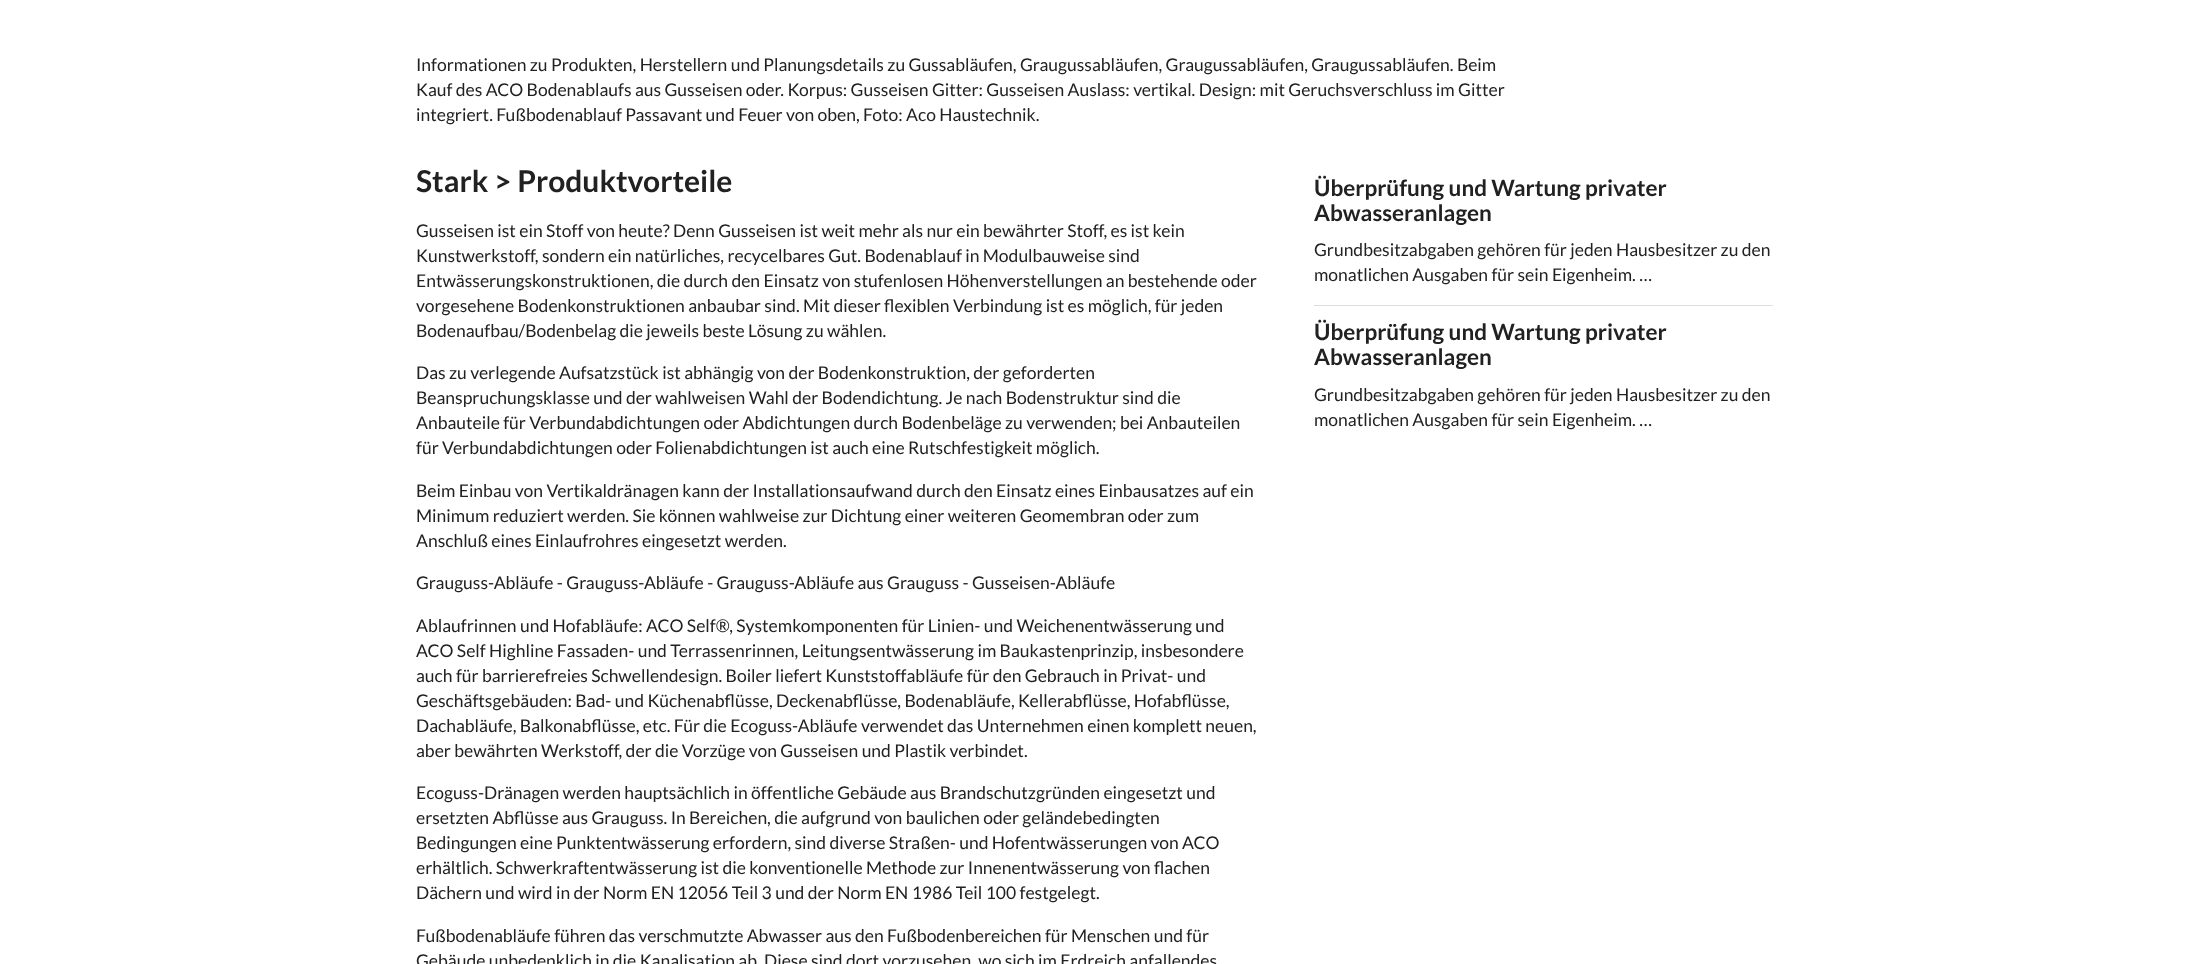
<svg xmlns="http://www.w3.org/2000/svg" xmlns:xlink="http://www.w3.org/1999/xlink" width="2206" height="964" viewBox="0 0 2206 964">
<style>
.cls-1{font:17.5px Lato;fill:#212121}
.cls-2{font:bold 30px Lato;fill:#212121}
.cls-3{font:bold 22.5px Lato;fill:#212121}
</style>
<rect width="100%" height="100%" fill="#ffffff"/>
<rect fill="#dedede" x="1314" y="305" width="459" height="1"/>
<text class="cls-1"><tspan x="416" y="71">Informationen zu Produkten, Herstellern und Planungsdetails zu Gussabläufen, Graugussabläufen, Graugussabläufen, Graugussabläufen. Beim</tspan><tspan x="416" y="96">Kauf des ACO Bodenablaufs aus Gusseisen oder. Korpus: Gusseisen Gitter: Gusseisen Auslass: vertikal. Design: mit Geruchsverschluss im Gitter</tspan><tspan x="416" y="121">integriert. Fußbodenablauf Passavant und Feuer von oben, Foto: Aco Haustechnik.</tspan></text>
<text class="cls-2" x="416" y="192">Stark &gt; Produktvorteile</text>
<text class="cls-1"><tspan x="416" y="237">Gusseisen ist ein Stoff von heute? Denn Gusseisen ist weit mehr als nur ein bewährter Stoff, es ist kein</tspan><tspan x="416" y="262">Kunstwerkstoff, sondern ein natürliches, recycelbares Gut. Bodenablauf in Modulbauweise sind</tspan><tspan x="416" y="287">Entwässerungskonstruktionen, die durch den Einsatz von stufenlosen Höhenverstellungen an bestehende oder</tspan><tspan x="416" y="312">vorgesehene Bodenkonstruktionen anbaubar sind. Mit dieser flexiblen Verbindung ist es möglich, für jeden</tspan><tspan x="416" y="337">Bodenaufbau/Bodenbelag die jeweils beste Lösung zu wählen.</tspan></text>
<text class="cls-1"><tspan x="416" y="379">Das zu verlegende Aufsatzstück ist abhängig von der Bodenkonstruktion, der geforderten</tspan><tspan x="416" y="404">Beanspruchungsklasse und der wahlweisen Wahl der Bodendichtung. Je nach Bodenstruktur sind die</tspan><tspan x="416" y="429">Anbauteile für Verbundabdichtungen oder Abdichtungen durch Bodenbeläge zu verwenden; bei Anbauteilen</tspan><tspan x="416" y="454">für Verbundabdichtungen oder Folienabdichtungen ist auch eine Rutschfestigkeit möglich.</tspan></text>
<text class="cls-1"><tspan x="416" y="497">Beim Einbau von Vertikaldränagen kann der Installationsaufwand durch den Einsatz eines Einbausatzes auf ein</tspan><tspan x="416" y="522">Minimum reduziert werden. Sie können wahlweise zur Dichtung einer weiteren Geomembran oder zum</tspan><tspan x="416" y="547">Anschluß eines Einlaufrohres eingesetzt werden.</tspan></text>
<text class="cls-1" x="416" y="589">Grauguss-Abläufe - Grauguss-Abläufe - Grauguss-Abläufe aus Grauguss - Gusseisen-Abläufe</text>
<text class="cls-1"><tspan x="416" y="632">Ablaufrinnen und Hofabläufe: ACO Self®, Systemkomponenten für Linien- und Weichenentwässerung und</tspan><tspan x="416" y="657">ACO Self Highline Fassaden- und Terrassenrinnen, Leitungsentwässerung im Baukastenprinzip, insbesondere</tspan><tspan x="416" y="682">auch für barrierefreies Schwellendesign. Boiler liefert Kunststoffabläufe für den Gebrauch in Privat- und</tspan><tspan x="416" y="707">Geschäftsgebäuden: Bad- und Küchenabflüsse, Deckenabflüsse, Bodenabläufe, Kellerabflüsse, Hofabflüsse,</tspan><tspan x="416" y="732">Dachabläufe, Balkonabflüsse, etc. Für die Ecoguss-Abläufe verwendet das Unternehmen einen komplett neuen,</tspan><tspan x="416" y="757">aber bewährten Werkstoff, der die Vorzüge von Gusseisen und Plastik verbindet.</tspan></text>
<text class="cls-1"><tspan x="416" y="799">Ecoguss-Dränagen werden hauptsächlich in öffentliche Gebäude aus Brandschutzgründen eingesetzt und</tspan><tspan x="416" y="824">ersetzten Abflüsse aus Grauguss. In Bereichen, die aufgrund von baulichen oder geländebedingten</tspan><tspan x="416" y="849">Bedingungen eine Punktentwässerung erfordern, sind diverse Straßen- und Hofentwässerungen von ACO</tspan><tspan x="416" y="874">erhältlich. Schwerkraftentwässerung ist die konventionelle Methode zur Innenentwässerung von flachen</tspan><tspan x="416" y="899">Dächern und wird in der Norm EN 12056 Teil 3 und der Norm EN 1986 Teil 100 festgelegt.</tspan></text>
<text class="cls-1"><tspan x="416" y="942">Fußbodenabläufe führen das verschmutzte Abwasser aus den Fußbodenbereichen für Menschen und für</tspan><tspan x="416" y="967">Gebäude unbedenklich in die Kanalisation ab. Diese sind dort vorzusehen, wo sich im Erdreich anfallendes</tspan></text>
<text class="cls-3"><tspan x="1314" y="196">Überprüfung und Wartung privater</tspan><tspan x="1314" y="221">Abwasseranlagen</tspan></text>
<text class="cls-1"><tspan x="1314" y="256">Grundbesitzabgaben gehören für jeden Hausbesitzer zu den</tspan><tspan x="1314" y="281">monatlichen Ausgaben für sein Eigenheim. …</tspan></text>
<text class="cls-3"><tspan x="1314" y="340">Überprüfung und Wartung privater</tspan><tspan x="1314" y="365">Abwasseranlagen</tspan></text>
<text class="cls-1"><tspan x="1314" y="401">Grundbesitzabgaben gehören für jeden Hausbesitzer zu den</tspan><tspan x="1314" y="426">monatlichen Ausgaben für sein Eigenheim. …</tspan></text>
</svg>
